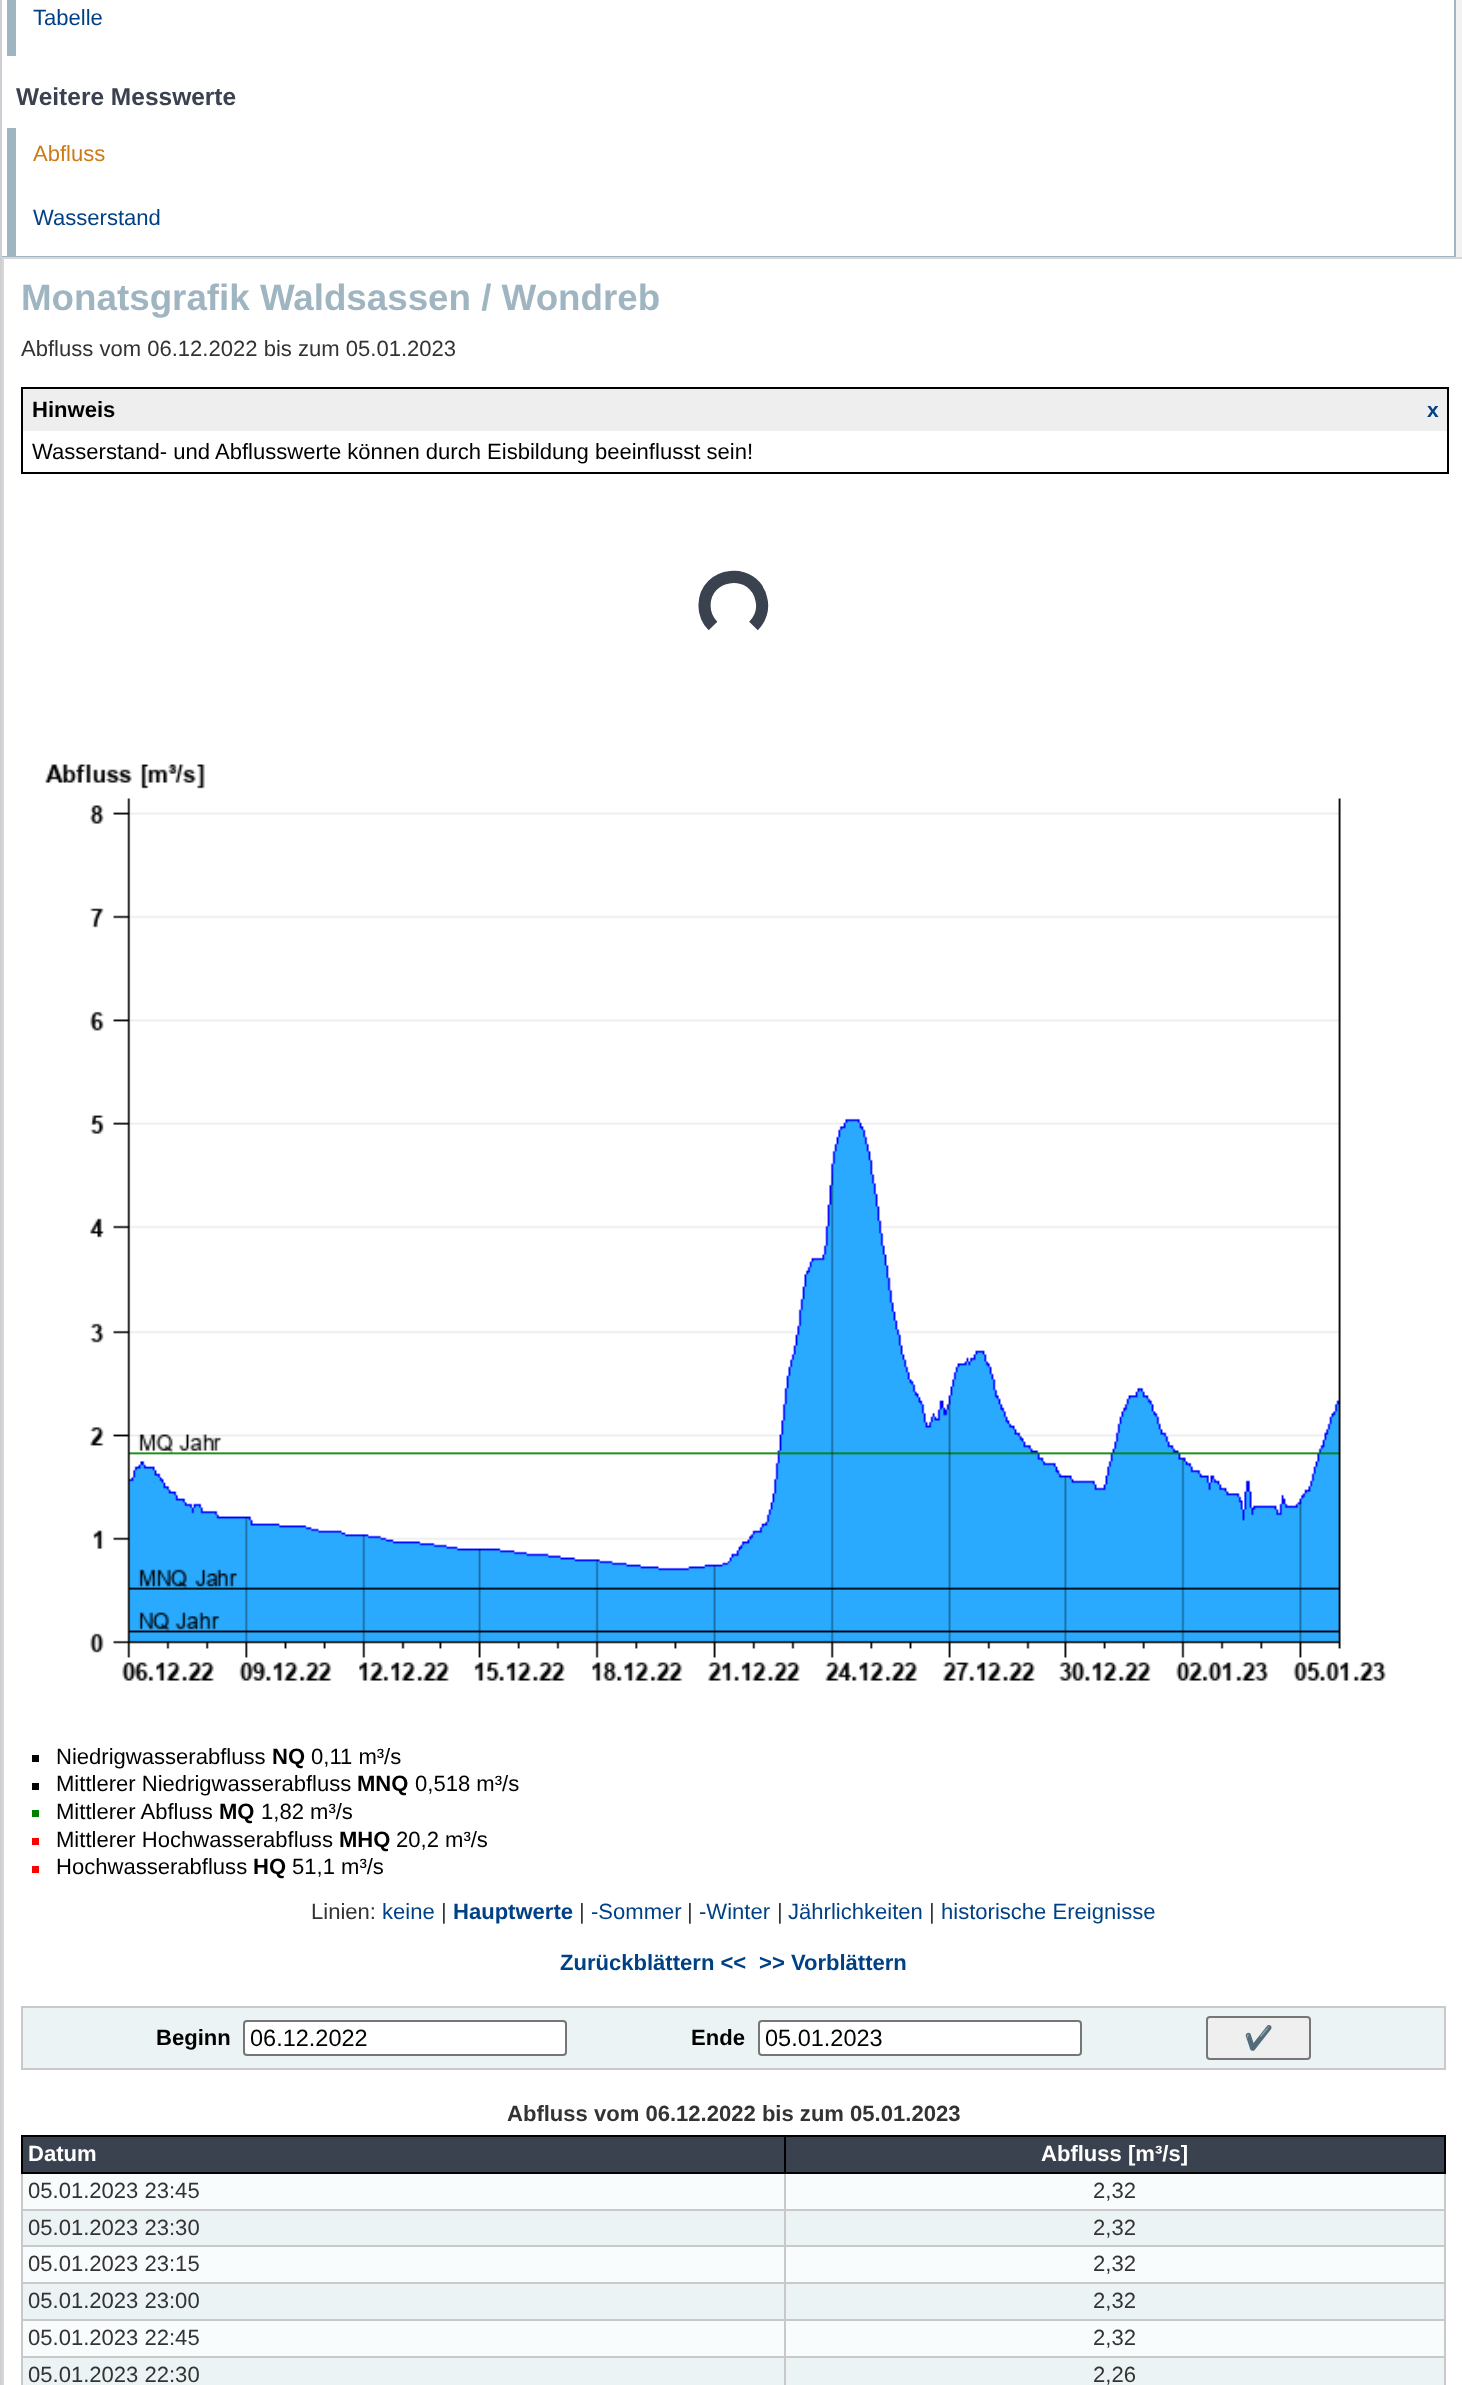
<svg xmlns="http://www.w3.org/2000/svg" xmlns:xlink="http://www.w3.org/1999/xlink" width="1462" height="2385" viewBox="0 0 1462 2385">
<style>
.cls-1{font:22.05px Liberation Sans;fill:#004185}
.cls-2{font:bold 24.5px Liberation Sans;fill:#3b424f}
.cls-3{font:22.05px Liberation Sans;fill:#cc7b17}
.cls-4{font:bold 36.75px Liberation Sans;fill:#9fb5c1}
.cls-5{font:22.05px Liberation Sans;fill:#333333}
.cls-6{font:bold 22.05px Liberation Sans;fill:#000000}
.cls-7{font:bold 21px Liberation Sans;fill:#004185}
.cls-8{font:22.05px Liberation Sans;fill:#000000}
.cls-9{font:bold 22.05px Liberation Sans;fill:#004185}
.cls-10{font:23.5px Liberation Sans;fill:#000000}
.cls-11{font:23.5px Noto Color Emoji;fill:#000000}
.cls-12{font:bold 22.05px Liberation Sans;fill:#333333}
.cls-13{font:bold 22.05px Liberation Sans;fill:#ffffff}
</style>
<rect width="100%" height="100%" fill="#cecfd4"/>
<rect fill="#f2f2f2" x="1456" y="0" width="6" height="257"/>
<rect fill="#ffffff" x="2" y="0" width="1452" height="256"/>
<rect fill="#9fb5c1" x="1454" y="0" width="2" height="257"/>
<rect fill="#9fb5c1" x="2" y="256" width="1454" height="1"/>
<rect fill="#9fb5c1" x="7" y="0" width="9" height="56"/>
<rect fill="#9fb5c1" x="7" y="128" width="9" height="128"/>
<rect fill="#ffffff" stroke="#d7d7d7" stroke-width="2" x="3" y="258" width="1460" height="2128"/>
<rect fill="none" stroke="#000000" stroke-width="2" x="22" y="388" width="1426" height="85"/>
<rect fill="#eeeeee" x="23" y="389" width="1424" height="42"/>
<path fill="none" stroke="#3b424f" stroke-width="12.2" d="M713 626C707.5 620.5 704.5 613 704.5 605.5C704.5 571 755 566 761.5 600C763.5 609 760.5 619 753.5 626"/>
<image xlink:href="image0.png" x="45" y="764" width="1341" height="917"/>
<rect fill="#000000" x="32" y="1755" width="7" height="7"/>
<rect fill="#000000" x="32" y="1783" width="7" height="7"/>
<rect fill="#008000" x="32" y="1810" width="7" height="7"/>
<rect fill="#ff0000" x="32" y="1838" width="7" height="7"/>
<rect fill="#ff0000" x="32" y="1866" width="7" height="7"/>
<rect fill="#ebf3f5" stroke="#c9c9c9" stroke-width="2" x="22" y="2007" width="1423" height="62"/>
<rect fill="#ffffff" stroke="#767676" stroke-width="2" x="244" y="2021" width="322" height="34" rx="3"/>
<rect fill="#ffffff" stroke="#767676" stroke-width="2" x="759" y="2021" width="322" height="34" rx="3"/>
<rect fill="#efefef" stroke="#767676" stroke-width="2" x="1207" y="2017" width="103" height="42" rx="3"/>
<rect fill="#3b424f" x="23" y="2137" width="761" height="35"/>
<rect fill="#000000" x="784" y="2135" width="662" height="2"/>
<rect fill="#c9c9c9" x="784" y="2209" width="662" height="2"/>
<rect fill="#c9c9c9" x="784" y="2245" width="662" height="2"/>
<rect fill="#c9c9c9" x="784" y="2282" width="662" height="2"/>
<rect fill="#c9c9c9" x="784" y="2319" width="662" height="2"/>
<rect fill="#c9c9c9" x="784" y="2356" width="662" height="2"/>
<rect fill="#c9c9c9" x="1444" y="2356" width="2" height="29"/>
<rect fill="#c9c9c9" x="1444" y="2319" width="2" height="38"/>
<rect fill="#c9c9c9" x="1444" y="2282" width="2" height="39"/>
<rect fill="#c9c9c9" x="1444" y="2245" width="2" height="39"/>
<rect fill="#c9c9c9" x="1444" y="2172" width="2" height="75"/>
<rect fill="#000000" x="1444" y="2135" width="2" height="39"/>
<rect fill="#f8fcfd" x="23" y="2174" width="1421" height="35"/>
<rect fill="#ebf3f5" x="23" y="2211" width="1421" height="34"/>
<rect fill="#f8fcfd" x="23" y="2247" width="1421" height="35"/>
<rect fill="#ebf3f5" x="23" y="2284" width="1421" height="35"/>
<rect fill="#f8fcfd" x="23" y="2321" width="1421" height="35"/>
<rect fill="#ebf3f5" x="23" y="2358" width="1421" height="27"/>
<rect fill="#c9c9c9" x="784" y="2356" width="2" height="29"/>
<rect fill="#c9c9c9" x="21" y="2356" width="765" height="2"/>
<rect fill="#c9c9c9" x="784" y="2319" width="2" height="38"/>
<rect fill="#c9c9c9" x="21" y="2319" width="765" height="2"/>
<rect fill="#c9c9c9" x="784" y="2282" width="2" height="39"/>
<rect fill="#c9c9c9" x="21" y="2282" width="765" height="2"/>
<rect fill="#c9c9c9" x="784" y="2245" width="2" height="39"/>
<rect fill="#c9c9c9" x="21" y="2245" width="765" height="2"/>
<rect fill="#c9c9c9" x="784" y="2209" width="2" height="38"/>
<rect fill="#c9c9c9" x="21" y="2209" width="765" height="2"/>
<rect fill="#c9c9c9" x="784" y="2172" width="2" height="38"/>
<rect fill="#000000" x="784" y="2172" width="662" height="2"/>
<rect fill="#000000" x="784" y="2135" width="2" height="39"/>
<rect fill="#000000" x="21" y="2135" width="765" height="2"/>
<rect fill="#c9c9c9" x="21" y="2356" width="2" height="29"/>
<rect fill="#c9c9c9" x="21" y="2319" width="2" height="38"/>
<rect fill="#c9c9c9" x="21" y="2282" width="2" height="39"/>
<rect fill="#c9c9c9" x="21" y="2245" width="2" height="39"/>
<rect fill="#c9c9c9" x="21" y="2172" width="2" height="75"/>
<rect fill="#000000" x="21" y="2172" width="765" height="2"/>
<rect fill="#000000" x="21" y="2135" width="2" height="39"/>
<rect fill="#3b424f" x="786" y="2137" width="658" height="35"/>
<text class="cls-1" x="33" y="25">Tabelle</text>
<text class="cls-2" x="16" y="105">Weitere Messwerte</text>
<text class="cls-3" x="33" y="161">Abfluss</text>
<text class="cls-1" x="33" y="225">Wasserstand</text>
<text class="cls-4" x="21" y="310">Monatsgrafik Waldsassen / Wondreb</text>
<text class="cls-5" x="21" y="356">Abfluss vom 06.12.2022 bis zum 05.01.2023</text>
<text class="cls-6" x="32" y="417">Hinweis</text>
<text class="cls-7" x="1427" y="417">x</text>
<text class="cls-8" x="32" y="459">Wasserstand- und Abflusswerte können durch Eisbildung beeinflusst sein!</text>
<text class="cls-8" x="56" y="1764">Niedrigwasserabfluss</text>
<text class="cls-6" x="272" y="1764">NQ</text>
<text class="cls-8" x="311" y="1764">0,11 m³/s</text>
<text class="cls-8" x="56" y="1791">Mittlerer Niedrigwasserabfluss</text>
<text class="cls-6" x="357" y="1791">MNQ</text>
<text class="cls-8" x="415" y="1791">0,518 m³/s</text>
<text class="cls-8" x="56" y="1819">Mittlerer Abfluss</text>
<text class="cls-6" x="219" y="1819">MQ</text>
<text class="cls-8" x="261" y="1819">1,82 m³/s</text>
<text class="cls-8" x="56" y="1847">Mittlerer Hochwasserabfluss</text>
<text class="cls-6" x="339" y="1847">MHQ</text>
<text class="cls-8" x="396" y="1847">20,2 m³/s</text>
<text class="cls-8" x="56" y="1874">Hochwasserabfluss</text>
<text class="cls-6" x="253" y="1874">HQ</text>
<text class="cls-8" x="292" y="1874">51,1 m³/s</text>
<text class="cls-5" x="311" y="1919">Linien:</text>
<text class="cls-1" x="382" y="1919">keine</text>
<text class="cls-5" x="441" y="1919">|</text>
<text class="cls-9" x="453" y="1919">Hauptwerte</text>
<text class="cls-5" x="579" y="1919">|</text>
<text class="cls-1" x="591" y="1919">-Sommer</text>
<text class="cls-5" x="687" y="1919">|</text>
<text class="cls-1" x="699" y="1919">-Winter</text>
<text class="cls-5" x="777" y="1919">|</text>
<text class="cls-1" x="788" y="1919">Jährlichkeiten</text>
<text class="cls-5" x="929" y="1919">|</text>
<text class="cls-1" x="941" y="1919">historische Ereignisse</text>
<text class="cls-9" x="560" y="1970">Zurückblättern &lt;&lt;</text>
<text class="cls-9" x="759" y="1970">&gt;&gt; Vorblättern</text>
<text class="cls-6" x="156" y="2045">Beginn</text>
<text class="cls-10" x="250" y="2046">06.12.2022</text>
<text class="cls-6" x="691" y="2045">Ende</text>
<text class="cls-10" x="765" y="2046">05.01.2023</text>
<text class="cls-11" x="1244" y="2046">✔️</text>
<text class="cls-12" x="507" y="2121">Abfluss vom 06.12.2022 bis zum 05.01.2023</text>
<text class="cls-13" x="28" y="2161">Datum</text>
<text class="cls-13" x="1041" y="2161">Abfluss [m³/s]</text>
<text class="cls-5" x="28" y="2198">05.01.2023 23:45</text>
<text class="cls-5" x="1093" y="2198">2,32</text>
<text class="cls-5" x="28" y="2235">05.01.2023 23:30</text>
<text class="cls-5" x="1093" y="2235">2,32</text>
<text class="cls-5" x="28" y="2271">05.01.2023 23:15</text>
<text class="cls-5" x="1093" y="2271">2,32</text>
<text class="cls-5" x="28" y="2308">05.01.2023 23:00</text>
<text class="cls-5" x="1093" y="2308">2,32</text>
<text class="cls-5" x="28" y="2345">05.01.2023 22:45</text>
<text class="cls-5" x="1093" y="2345">2,32</text>
<text class="cls-5" x="28" y="2382">05.01.2023 22:30</text>
<text class="cls-5" x="1093" y="2382">2,26</text>
</svg>
